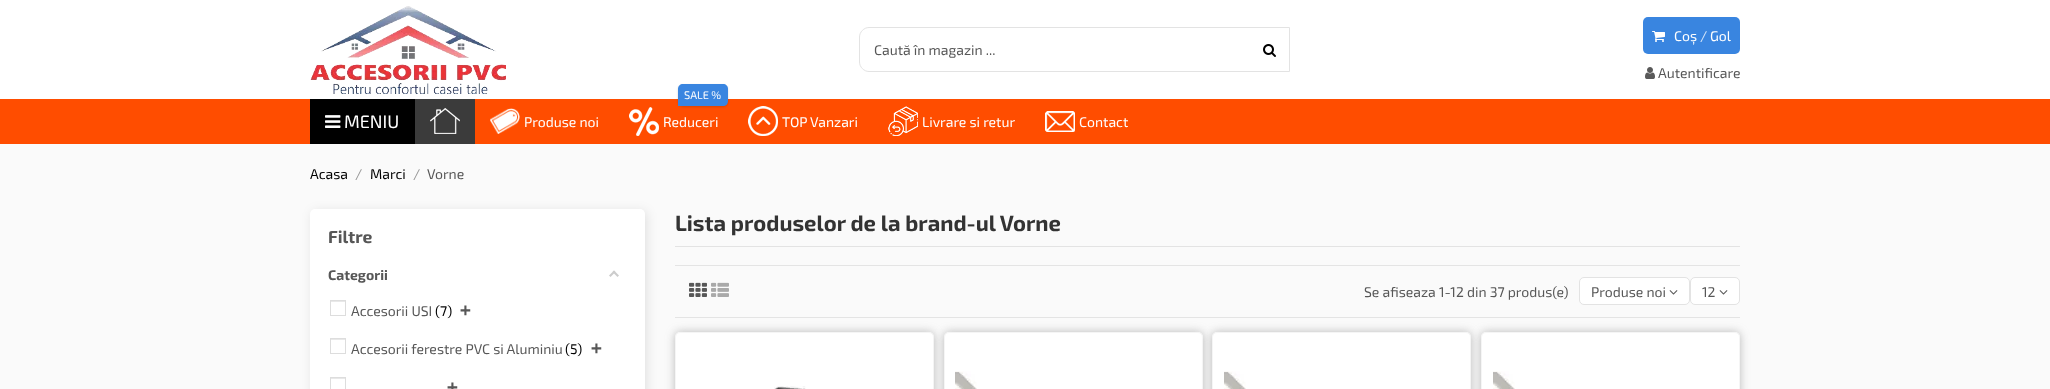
<svg xmlns="http://www.w3.org/2000/svg" xmlns:xlink="http://www.w3.org/1999/xlink" width="2050" height="389" viewBox="0 0 2050 389">
<style>
.cls-1{font:14px 'Exo 2';fill:#575757}
.cls-2{font:14px 'Exo 2';fill:#ffffff}
.cls-3{font:14px 'Exo 2';fill:#d7e7f9}
.cls-4{font:18px 'Exo 2';fill:#ffffff}
.cls-5{font:11px 'Exo 2';fill:#ffffff}
.cls-6{font:14px 'Exo 2';fill:#000000}
.cls-7{font:14px 'Exo 2';fill:#969696}
.cls-8{font:bold 17.5px 'Exo 2';fill:#575757}
.cls-9{font:bold 14px 'Exo 2';fill:#575757}
.cls-10{font:bold 18px DejaVu Sans Mono;fill:#575757}
.cls-11{font:bold 22px 'Exo 2';fill:#333333}
</style>
<rect width="100%" height="100%" fill="#fafafa"/>
<rect fill="#ffffff" x="0" y="0" width="2050" height="99"/>
<image xlink:href="image0.png" x="310" y="6" width="196" height="88"/>
<path fill="none" stroke="#e3e3e3" d="M869 27.5H1289.5V71.5H869C864 71.5 859.5 67 859.5 62V37C859.5 32 864 27.5 869 27.5Z"/>
<image xlink:href="image1.png" x="1263" y="44" width="13" height="13"/>
<rect fill="#3985e0" x="1643" y="17" width="97" height="37" rx="5"/>
<image xlink:href="image2.png" x="1652" y="31" width="13" height="11"/>
<image xlink:href="image3.png" x="1645" y="67" width="10" height="12"/>
<rect fill="#ff4d00" x="0" y="99" width="2050" height="45"/>
<rect fill="#000000" x="310" y="99" width="105" height="45"/>
<image xlink:href="image4.png" x="325" y="115" width="16" height="13"/>
<rect fill="#3b3b3b" x="415" y="99" width="60" height="45"/>
<image xlink:href="image5.png" x="430" y="108" width="30" height="26"/>
<image xlink:href="image6.png" x="490" y="108" width="30" height="26"/>
<rect fill="#000000" fill-opacity="0.15" filter="blur(1px)" x="678" y="85" width="50" height="22" rx="5"/>
<path fill="#3985e0" d="M683 84H723C726 84 728 86 728 89V101C728 104 726 106 723 106H678V89C678 86 680 84 683 84Z"/>
<image xlink:href="image7.png" x="629" y="107" width="30" height="29"/>
<image xlink:href="image8.png" x="748" y="106" width="30" height="30"/>
<image xlink:href="image9.png" x="888" y="106" width="30" height="30"/>
<image xlink:href="image10.png" x="1045" y="111" width="30" height="21"/>
<rect fill="#000000" fill-opacity="0.1" filter="blur(5.5px)" x="312" y="211" width="335" height="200" rx="5"/>
<rect fill="#ffffff" x="310" y="209" width="335" height="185" rx="5"/>
<path fill="#cccccc" d="M614 270.5L619 275.5L617.5 277L612.5 272Z"/>
<path fill="#cccccc" d="M614 270.5L615.5 272L610.5 277L609 275.5Z"/>
<rect fill="#e8e8e8" x="331" y="301" width="14" height="1"/>
<rect fill="none" stroke="#dddddd" x="330.5" y="300.5" width="15" height="15"/>
<rect fill="#e8e8e8" x="331" y="339" width="14" height="1"/>
<rect fill="none" stroke="#dddddd" x="330.5" y="338.5" width="15" height="15"/>
<rect fill="#e8e8e8" x="331" y="378" width="14" height="1"/>
<rect fill="none" stroke="#dddddd" x="330.5" y="377.5" width="15" height="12"/>
<rect fill="#e3e3e3" x="675" y="246" width="1065" height="1"/>
<rect fill="#e4e4e4" x="675" y="265" width="1065" height="1"/>
<rect fill="#e4e4e4" x="675" y="317" width="1065" height="1"/>
<image xlink:href="image11.png" x="689" y="282" width="18" height="15"/>
<image xlink:href="image12.png" x="711" y="282" width="18" height="15"/>
<rect fill="#ffffff" stroke="#e3e3e3" x="1579.5" y="277.5" width="110" height="27" rx="4.5"/>
<image xlink:href="image13.png" x="1669" y="290" width="9" height="5"/>
<rect fill="#ffffff" stroke="#e3e3e3" x="1690.5" y="277.5" width="49" height="27" rx="4.5"/>
<image xlink:href="image13.png" x="1719" y="290" width="9" height="5"/>
<rect fill="#6c6c6c" fill-opacity="0.45" filter="blur(5px)" x="675" y="332" width="259" height="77" rx="5"/>
<rect fill="#ffffff" x="675" y="332" width="259" height="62" rx="5"/>
<rect fill="none" stroke="#ededed" stroke-opacity="0.53" x="675.5" y="332.5" width="258" height="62" rx="4.5"/>
<image xlink:href="image14.png" x="774" y="386" width="32" height="3"/>
<rect fill="#6c6c6c" fill-opacity="0.45" filter="blur(5px)" x="944" y="332" width="259" height="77" rx="5"/>
<rect fill="#ffffff" x="944" y="332" width="259" height="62" rx="5"/>
<rect fill="none" stroke="#ededed" stroke-opacity="0.53" x="944.5" y="332.5" width="258" height="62" rx="4.5"/>
<image xlink:href="image15.png" x="955" y="371" width="22" height="18"/>
<rect fill="#6c6c6c" fill-opacity="0.45" filter="blur(5px)" x="1212" y="332" width="259" height="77" rx="5"/>
<rect fill="#ffffff" x="1212" y="332" width="259" height="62" rx="5"/>
<rect fill="none" stroke="#ededed" stroke-opacity="0.53" x="1212.5" y="332.5" width="258" height="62" rx="4.5"/>
<image xlink:href="image15.png" x="1224" y="371" width="22" height="18"/>
<rect fill="#6c6c6c" fill-opacity="0.45" filter="blur(5px)" x="1481" y="332" width="259" height="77" rx="5"/>
<rect fill="#ffffff" x="1481" y="332" width="259" height="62" rx="5"/>
<rect fill="none" stroke="#ededed" stroke-opacity="0.53" x="1481.5" y="332.5" width="258" height="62" rx="4.5"/>
<image xlink:href="image15.png" x="1493" y="371" width="22" height="18"/>
<text class="cls-1" x="874" y="55">Caută în magazin ...</text>
<text class="cls-2" x="1674" y="41">Coș</text>
<text class="cls-3" x="1700" y="41">/</text>
<text class="cls-2" x="1710" y="41">Gol</text>
<text class="cls-1" x="1658" y="78">Autentificare</text>
<text class="cls-4" x="344" y="128">MENIU</text>
<text class="cls-2" x="524" y="127">Produse noi</text>
<text class="cls-5" x="684" y="99">SALE %</text>
<text class="cls-2" x="663" y="127">Reduceri</text>
<text class="cls-2" x="782" y="127">TOP Vanzari</text>
<text class="cls-2" x="922" y="127">Livrare si retur</text>
<text class="cls-2" x="1079" y="127">Contact</text>
<text class="cls-6" x="310" y="179">Acasa</text>
<text class="cls-7" x="355" y="179">/</text>
<text class="cls-6" x="370" y="179">Marci</text>
<text class="cls-7" x="413" y="179">/</text>
<text class="cls-1" x="427" y="179">Vorne</text>
<text class="cls-8" x="328" y="243">Filtre</text>
<text class="cls-9" x="328" y="280">Categorii</text>
<text class="cls-1" x="351" y="316">Accesorii USI</text>
<text class="cls-6" x="435" y="316">(7)</text>
<text class="cls-10" x="460" y="316">+</text>
<text class="cls-1" x="351" y="354">Accesorii ferestre PVC si Aluminiu</text>
<text class="cls-6" x="565" y="354">(5)</text>
<text class="cls-10" x="591" y="354">+</text>
<text class="cls-10" x="447" y="393">+</text>
<text class="cls-11" x="675" y="231">Lista produselor de la brand-ul Vorne</text>
<text class="cls-1" x="1364" y="297">Se afiseaza 1-12 din 37 produs(e)</text>
<text class="cls-1" x="1591" y="297">Produse noi</text>
<text class="cls-1" x="1702" y="297">12</text>
</svg>
